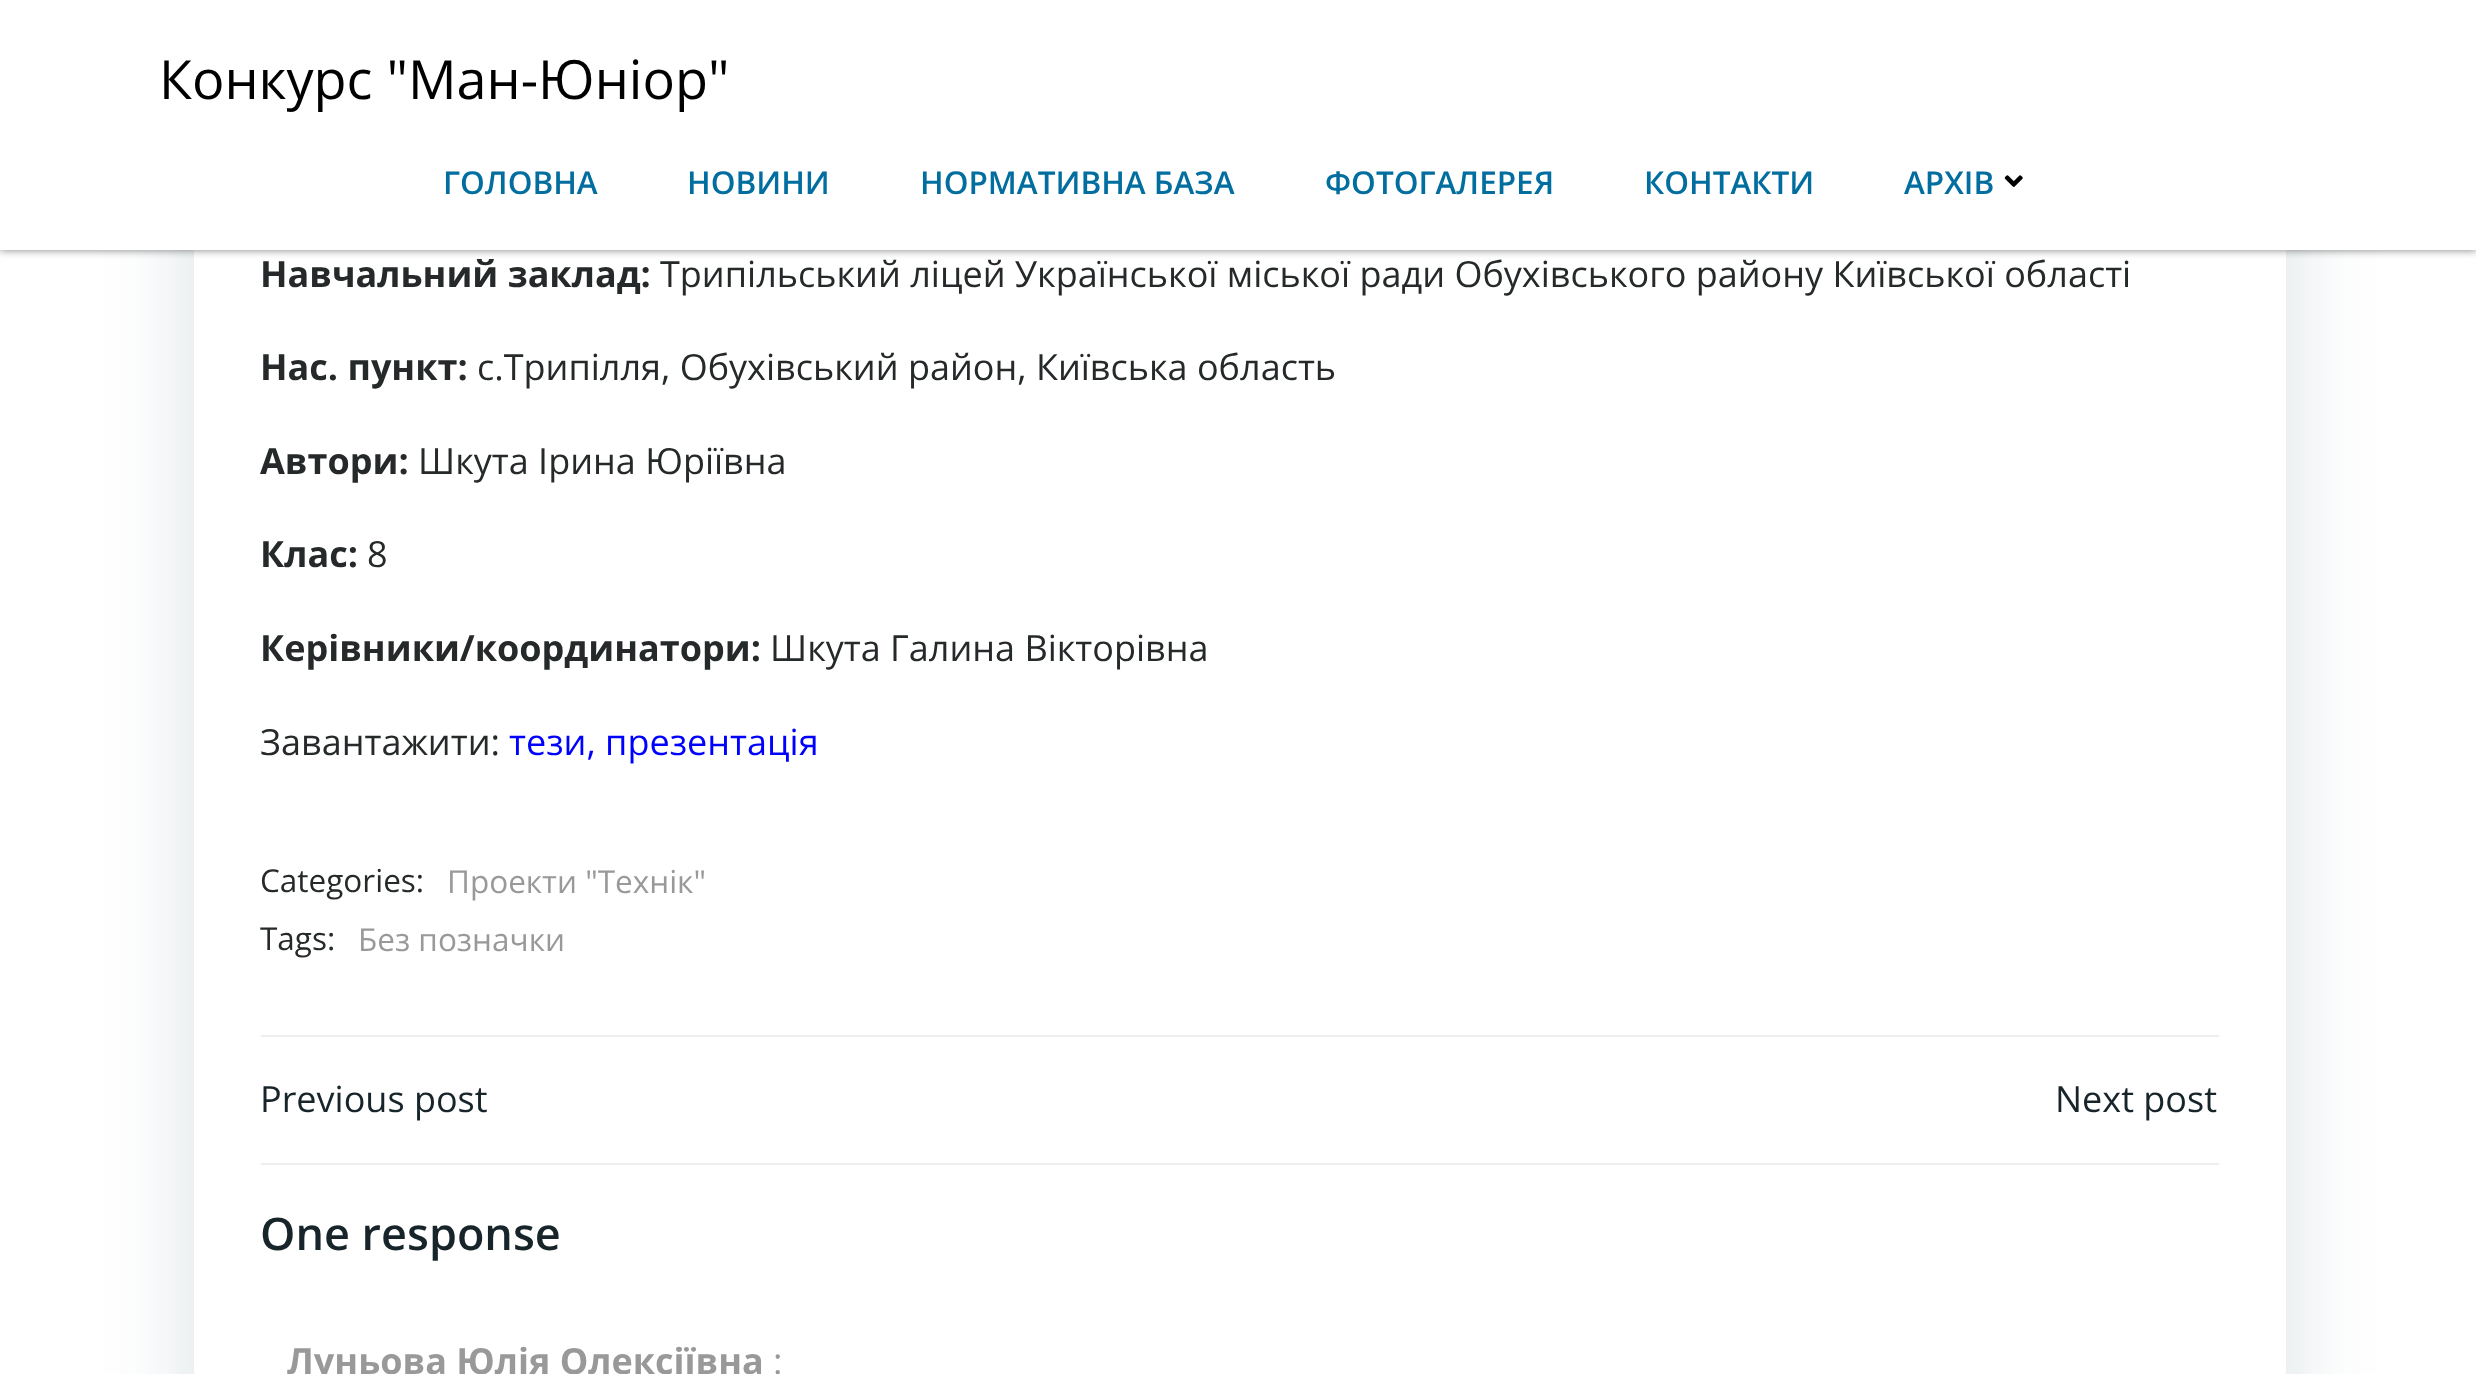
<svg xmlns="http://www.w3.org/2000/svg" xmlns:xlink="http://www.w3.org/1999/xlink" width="2476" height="1374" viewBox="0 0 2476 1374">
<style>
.cls-1{font:54px Open Sans;fill:#000000}
.cls-2{font:600 31.5px Open Sans;fill:#026e9f}
.cls-3{font:bold 36px Open Sans;fill:#25292a}
.cls-4{font:36px Open Sans;fill:#25292a}
.cls-5{font:36px Open Sans;fill:#0000ff}
.cls-6{font:31.5px Open Sans;fill:#25292a}
.cls-7{font:31.5px Open Sans;fill:#999999}
.cls-8{font:36px Open Sans;fill:#17252a}
.cls-9{font:600 45px Open Sans;fill:#17252a}
.cls-10{font:bold 36px Open Sans;fill:#999999}
.cls-11{font:36px Open Sans;fill:#999999}
</style>
<defs>
<clipPath id="clip1"><path d="M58 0H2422V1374H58ZM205-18H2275C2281-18 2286-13 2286-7V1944C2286 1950 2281 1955 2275 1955H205C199 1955 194 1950 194 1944V-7C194-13 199-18 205-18Z" clip-rule="evenodd"/></clipPath>
</defs>
<rect width="100%" height="100%" fill="#ffffff"/>
<rect fill="#000000" fill-opacity="0.5" filter="blur(4.5px)" x="0" y="0" width="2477" height="250"/>
<g clip-path="url(#clip1)">
<rect fill="#01334a" fill-opacity="0.15" filter="blur(45px)" x="194" y="5" width="2092" height="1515" rx="11"/>
</g>
<rect fill="#ffffff" x="0" y="0" width="2476" height="250"/>
<image xlink:href="image0.png" x="2004" y="175" width="19" height="12"/>
<rect fill="#eeeeee" x="261" y="1035" width="1958" height="2"/>
<rect fill="#eeeeee" x="261" y="1163" width="1958" height="2"/>
<text class="cls-1" x="159" y="99">Конкурс "Ман-Юніор"</text>
<text class="cls-2" x="443" y="194">ГОЛОВНА</text>
<text class="cls-2" x="687" y="194">НОВИНИ</text>
<text class="cls-2" x="920" y="194">НОРМАТИВНА БАЗА</text>
<text class="cls-2" x="1325" y="194">ФОТОГАЛЕРЕЯ</text>
<text class="cls-2" x="1644" y="194">КОНТАКТИ</text>
<text class="cls-2" x="1904" y="194">АРХІВ</text>
<text class="cls-3" x="260" y="287">Навчальний заклад:</text>
<text class="cls-4" x="660" y="287">Трипільський ліцей Української міської ради Обухівського району Київської області</text>
<text class="cls-3" x="260" y="380">Нас. пункт:</text>
<text class="cls-4" x="477" y="380">с.Трипілля, Обухівський район, Київська область</text>
<text class="cls-3" x="260" y="474">Автори:</text>
<text class="cls-4" x="418" y="474">Шкута Ірина Юріївна</text>
<text class="cls-3" x="260" y="567">Клас:</text>
<text class="cls-4" x="367" y="567">8</text>
<text class="cls-3" x="260" y="661">Керівники/координатори:</text>
<text class="cls-4" x="770" y="661">Шкута Галина Вікторівна</text>
<text class="cls-4" x="260" y="755">Завантажити:</text>
<text class="cls-5" x="509" y="755">тези, презентація</text>
<text class="cls-6" x="260" y="892">Categories:</text>
<text class="cls-7" x="447" y="893">Проекти "Технік"</text>
<text class="cls-6" x="260" y="950">Tags:</text>
<text class="cls-7" x="358" y="951">Без позначки</text>
<text class="cls-8" x="260" y="1112">Previous post</text>
<text class="cls-8" x="2055" y="1112">Next post</text>
<text class="cls-9" x="260" y="1250">One response</text>
<text class="cls-10" x="287" y="1374">Луньова Юлія Олексіївна</text>
<text class="cls-11" x="773" y="1374">:</text>
</svg>
